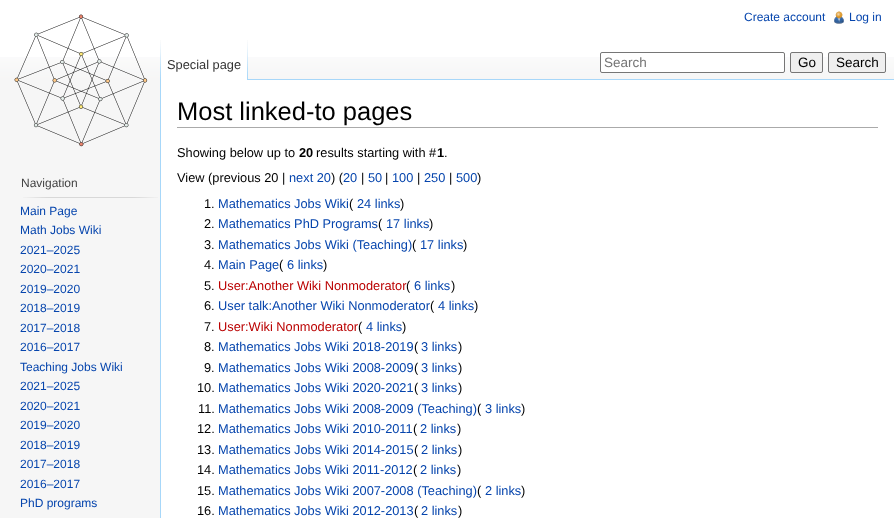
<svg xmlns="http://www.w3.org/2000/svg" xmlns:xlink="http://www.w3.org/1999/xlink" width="894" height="518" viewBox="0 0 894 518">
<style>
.cls-1{font:12px Liberation Sans;fill:#0645ad}
.cls-2{font:12.8px Liberation Sans;fill:#333333}
.cls-3{font:13.5px Liberation Sans;fill:#757575}
.cls-4{font:13.5px Liberation Sans;fill:#000000}
.cls-5{font:12px Liberation Sans;fill:#444444}
.cls-6{font:25.5px Liberation Sans;fill:#000000}
.cls-7{font:12.8px Liberation Sans;fill:#000000}
.cls-8{font:bold 12.8px Liberation Sans;fill:#000000}
.cls-9{font:12.8px Liberation Sans;fill:#0645ad}
.cls-10{font:12.8px Liberation Sans;fill:#ba0000}
</style>
<rect width="100%" height="100%" fill="#f6f6f6"/>
<rect fill="#ffffff" x="0" y="0" width="894" height="57"/>
<image xlink:href="image0.png" x="0" y="57" width="894" height="23"/>
<image xlink:href="image1.png" x="834" y="11" width="10" height="13"/>
<image xlink:href="image2.png" x="160" y="40" width="1" height="39"/>
<rect fill="#ffffff" x="161" y="57" width="86" height="23"/>
<image xlink:href="image3.png" x="247" y="40" width="1" height="40"/>
<rect fill="#ffffff" stroke="#767676" x="600.5" y="52.5" width="184" height="20" rx="1.5"/>
<rect fill="#efefef" stroke="#767676" x="790.5" y="52.5" width="32" height="20" rx="1.5"/>
<rect fill="#efefef" stroke="#767676" x="828.5" y="52.5" width="57" height="20" rx="1.5"/>
<image xlink:href="image4.png" x="14" y="14" width="134" height="133"/>
<image xlink:href="image5.png" x="23" y="197" width="135" height="1"/>
<rect fill="#ffffff" x="161" y="80" width="733" height="438"/>
<rect fill="#a7d7f9" x="248" y="79" width="646" height="1"/>
<rect fill="#a7d7f9" x="160" y="79" width="1" height="439"/>
<rect fill="#aaaaaa" x="177" y="127" width="701" height="1"/>
<text class="cls-1" x="744" y="21">Create account</text>
<text class="cls-1" x="849" y="21">Log in</text>
<text class="cls-2" x="167" y="69">Special page</text>
<text class="cls-3" x="604" y="67">Search</text>
<text class="cls-4" x="798" y="67">Go</text>
<text class="cls-4" x="836" y="67">Search</text>
<text class="cls-5" x="21" y="187">Navigation</text>
<text class="cls-1"><tspan x="20" y="215">Main Page</tspan><tspan x="20" y="234">Math Jobs Wiki</tspan><tspan x="20" y="254">2021–2025</tspan><tspan x="20" y="273">2020–2021</tspan><tspan x="20" y="293">2019–2020</tspan><tspan x="20" y="312">2018–2019</tspan><tspan x="20" y="332">2017–2018</tspan><tspan x="20" y="351">2016–2017</tspan><tspan x="20" y="371">Teaching Jobs Wiki</tspan><tspan x="20" y="390">2021–2025</tspan><tspan x="20" y="410">2020–2021</tspan><tspan x="20" y="429">2019–2020</tspan><tspan x="20" y="449">2018–2019</tspan><tspan x="20" y="468">2017–2018</tspan><tspan x="20" y="488">2016–2017</tspan><tspan x="20" y="507">PhD programs</tspan></text>
<text class="cls-6" x="177" y="120">Most linked-to pages</text>
<text class="cls-7" x="177" y="157">Showing below up to</text>
<text class="cls-8" x="299" y="157">20</text>
<text class="cls-7" x="316" y="157">results starting with #</text>
<text class="cls-8" x="437" y="157">1</text>
<text class="cls-7" x="444" y="157">.</text>
<text class="cls-7" x="177" y="182">View (previous 20 |</text>
<text class="cls-9" x="289" y="182">next 20</text>
<text class="cls-7" x="331" y="182">) (</text>
<text class="cls-9" x="343" y="182">20</text>
<text class="cls-7" x="361" y="182">|</text>
<text class="cls-9" x="368" y="182">50</text>
<text class="cls-7" x="385" y="182">|</text>
<text class="cls-9" x="392" y="182">100</text>
<text class="cls-7" x="417" y="182">|</text>
<text class="cls-9" x="424" y="182">250</text>
<text class="cls-7" x="449" y="182">|</text>
<text class="cls-9" x="456" y="182">500</text>
<text class="cls-7" x="477" y="182">)</text>
<text class="cls-7" x="204" y="208">1.</text>
<text class="cls-9" x="218" y="208">Mathematics Jobs Wiki</text>
<text class="cls-7" x="349" y="208"> (</text>
<text class="cls-9" x="357" y="208">24 links</text>
<text class="cls-7" x="400" y="208">)</text>
<text class="cls-7" x="204" y="228">2.</text>
<text class="cls-9" x="218" y="228">Mathematics PhD Programs</text>
<text class="cls-7" x="378" y="228"> (</text>
<text class="cls-9" x="386" y="228">17 links</text>
<text class="cls-7" x="429" y="228">)</text>
<text class="cls-7" x="204" y="249">3.</text>
<text class="cls-9" x="218" y="249">Mathematics Jobs Wiki (Teaching)</text>
<text class="cls-7" x="412" y="249"> (</text>
<text class="cls-9" x="420" y="249">17 links</text>
<text class="cls-7" x="463" y="249">)</text>
<text class="cls-7" x="204" y="269">4.</text>
<text class="cls-9" x="218" y="269">Main Page</text>
<text class="cls-7" x="279" y="269"> (</text>
<text class="cls-9" x="287" y="269">6 links</text>
<text class="cls-7" x="323" y="269">)</text>
<text class="cls-7" x="204" y="290">5.</text>
<text class="cls-10" x="218" y="290">User:Another Wiki Nonmoderator</text>
<text class="cls-7" x="406" y="290"> (</text>
<text class="cls-9" x="414" y="290">6 links</text>
<text class="cls-7" x="451" y="290">)</text>
<text class="cls-7" x="204" y="310">6.</text>
<text class="cls-9" x="218" y="310">User talk:Another Wiki Nonmoderator</text>
<text class="cls-7" x="430" y="310"> (</text>
<text class="cls-9" x="438" y="310">4 links</text>
<text class="cls-7" x="474" y="310">)</text>
<text class="cls-7" x="204" y="331">7.</text>
<text class="cls-10" x="218" y="331">User:Wiki Nonmoderator</text>
<text class="cls-7" x="358" y="331"> (</text>
<text class="cls-9" x="366" y="331">4 links</text>
<text class="cls-7" x="402" y="331">)</text>
<text class="cls-7" x="204" y="351">8.</text>
<text class="cls-9" x="218" y="351">Mathematics Jobs Wiki 2018-2019</text>
<text class="cls-7" x="414" y="351"> (</text>
<text class="cls-9" x="421" y="351">3 links</text>
<text class="cls-7" x="458" y="351">)</text>
<text class="cls-7" x="204" y="372">9.</text>
<text class="cls-9" x="218" y="372">Mathematics Jobs Wiki 2008-2009</text>
<text class="cls-7" x="414" y="372"> (</text>
<text class="cls-9" x="421" y="372">3 links</text>
<text class="cls-7" x="458" y="372">)</text>
<text class="cls-7" x="197" y="392">10.</text>
<text class="cls-9" x="218" y="392">Mathematics Jobs Wiki 2020-2021</text>
<text class="cls-7" x="414" y="392"> (</text>
<text class="cls-9" x="421" y="392">3 links</text>
<text class="cls-7" x="458" y="392">)</text>
<text class="cls-7" x="198" y="413">11.</text>
<text class="cls-9" x="218" y="413">Mathematics Jobs Wiki 2008-2009 (Teaching)</text>
<text class="cls-7" x="477" y="413"> (</text>
<text class="cls-9" x="485" y="413">3 links</text>
<text class="cls-7" x="521" y="413">)</text>
<text class="cls-7" x="197" y="433">12.</text>
<text class="cls-9" x="218" y="433">Mathematics Jobs Wiki 2010-2011</text>
<text class="cls-7" x="413" y="433"> (</text>
<text class="cls-9" x="420" y="433">2 links</text>
<text class="cls-7" x="457" y="433">)</text>
<text class="cls-7" x="197" y="454">13.</text>
<text class="cls-9" x="218" y="454">Mathematics Jobs Wiki 2014-2015</text>
<text class="cls-7" x="414" y="454"> (</text>
<text class="cls-9" x="421" y="454">2 links</text>
<text class="cls-7" x="458" y="454">)</text>
<text class="cls-7" x="197" y="474">14.</text>
<text class="cls-9" x="218" y="474">Mathematics Jobs Wiki 2011-2012</text>
<text class="cls-7" x="413" y="474"> (</text>
<text class="cls-9" x="420" y="474">2 links</text>
<text class="cls-7" x="457" y="474">)</text>
<text class="cls-7" x="197" y="495">15.</text>
<text class="cls-9" x="218" y="495">Mathematics Jobs Wiki 2007-2008 (Teaching)</text>
<text class="cls-7" x="477" y="495"> (</text>
<text class="cls-9" x="485" y="495">2 links</text>
<text class="cls-7" x="521" y="495">)</text>
<text class="cls-7" x="197" y="515">16.</text>
<text class="cls-9" x="218" y="515">Mathematics Jobs Wiki 2012-2013</text>
<text class="cls-7" x="414" y="515"> (</text>
<text class="cls-9" x="421" y="515">2 links</text>
<text class="cls-7" x="458" y="515">)</text>
</svg>
